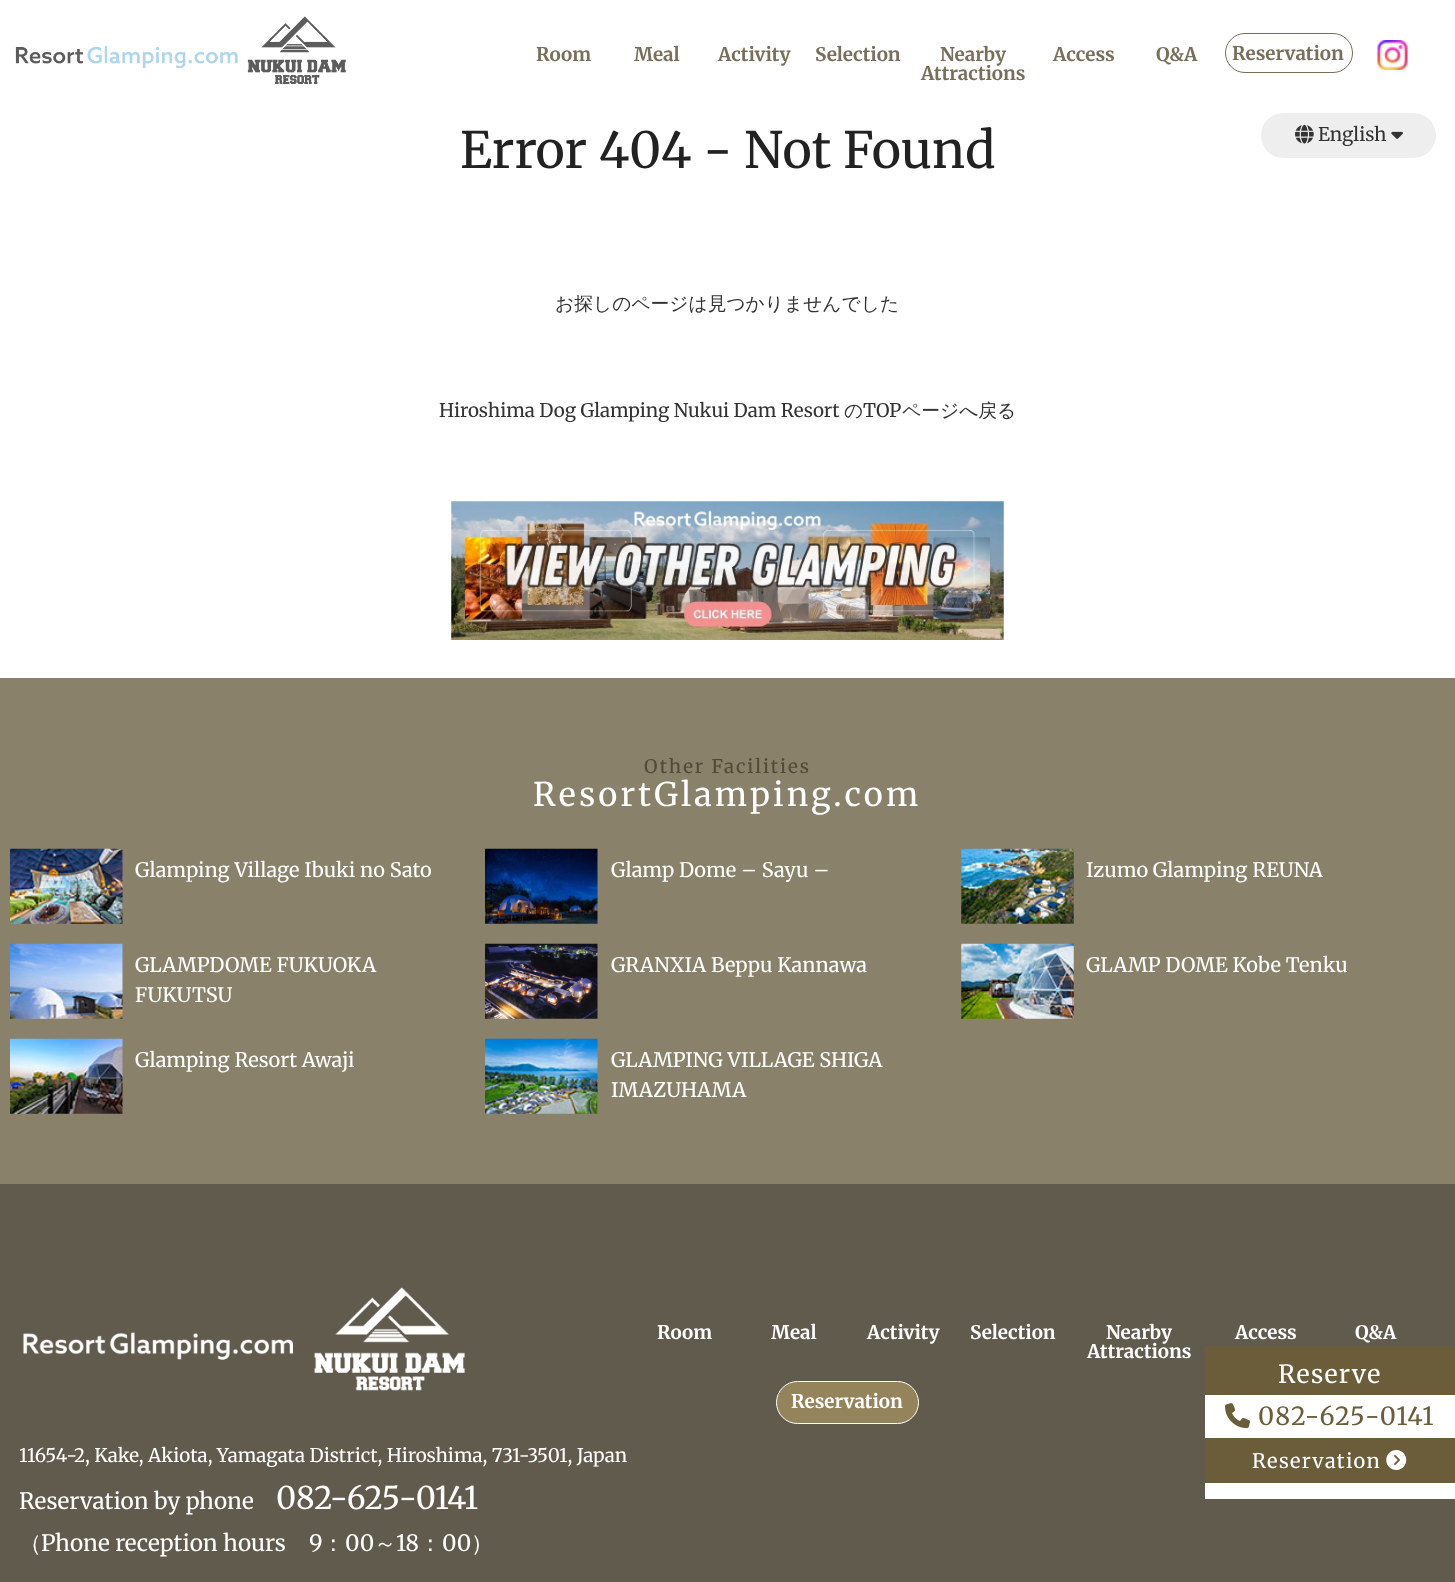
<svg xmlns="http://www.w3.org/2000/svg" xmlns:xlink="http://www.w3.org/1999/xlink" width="1455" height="1582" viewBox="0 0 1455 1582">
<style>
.cls-1{font:bold 18.75px Merriweather;fill:#776f5a}
.cls-2{font:18.75px Merriweather;fill:#333333}
.cls-3{font:50px Merriweather;fill:#222222}
.cls-4{font:500 18.75px WenQuanYi Zen Hei;fill:#333333}
.cls-5{font:18.75px Merriweather;letter-spacing:1.9px;fill:#514a39}
.cls-6{font:32.5px Merriweather;letter-spacing:3.25px;fill:#ffffff}
.cls-7{font:20px Merriweather;fill:#ffffff}
.cls-8{font:bold 18.75px Merriweather;fill:#ffffff}
.cls-9{font:18.75px Merriweather;fill:#ffffff}
.cls-10{font:22.5px Merriweather;fill:#ffffff}
.cls-11{font:31.25px Merriweather;fill:#ffffff}
.cls-12{font:500 22.5px WenQuanYi Zen Hei;fill:#ffffff}
.cls-13{font:25px Merriweather;letter-spacing:1.25px;fill:#ffffff}
.cls-14{font:25px Merriweather;letter-spacing:1.25px;fill:#6c5d3a}
.cls-15{font:20px Merriweather;letter-spacing:1.25px;fill:#ffffff}
</style>
<rect width="100%" height="100%" fill="#ffffff"/>
<image xlink:href="image0.png" x="15" y="16" width="331" height="68"/>
<rect fill="none" stroke="#776f5a" x="1225.5" y="33.5" width="127" height="39" rx="19.5"/>
<image xlink:href="image1.png" x="1377" y="40" width="31" height="30"/>
<rect fill="#eeeeee" x="1261" y="113" width="175" height="45" rx="22.5"/>
<image xlink:href="image2.png" x="1295" y="124" width="19" height="20"/>
<image xlink:href="image3.png" x="1391" y="131" width="12" height="8"/>
<image xlink:href="image4.png" x="451" y="501" width="553" height="139"/>
<rect fill="#898169" x="0" y="678" width="1455" height="506"/>
<image xlink:href="image5.png" x="10" y="848" width="113" height="76"/>
<image xlink:href="image6.png" x="485" y="848" width="113" height="76"/>
<image xlink:href="image7.png" x="961" y="848" width="113" height="76"/>
<image xlink:href="image8.png" x="10" y="943" width="113" height="76"/>
<image xlink:href="image9.png" x="485" y="943" width="113" height="76"/>
<image xlink:href="image10.png" x="961" y="943" width="113" height="76"/>
<image xlink:href="image11.png" x="10" y="1038" width="113" height="76"/>
<image xlink:href="image12.png" x="485" y="1038" width="113" height="76"/>
<rect fill="#615b4d" x="0" y="1184" width="1455" height="398"/>
<rect fill="#95835b" stroke="#ffffff" x="776.5" y="1381.5" width="142" height="42" rx="21"/>
<image xlink:href="image13.png" x="22" y="1287" width="443" height="104"/>
<rect fill="#ffffff" x="1205" y="1395" width="250" height="104"/>
<rect fill="#6c5d3a" x="1205" y="1346" width="250" height="49"/>
<image xlink:href="image14.png" x="1225" y="1403" width="25" height="26"/>
<rect fill="#6c5d3a" x="1205" y="1438" width="250" height="45"/>
<image xlink:href="image15.png" x="1386" y="1450" width="21" height="20"/>
<text class="cls-1" x="536" y="61">Room</text>
<text class="cls-1" x="634" y="61">Meal</text>
<text class="cls-1" x="718" y="61">Activity</text>
<text class="cls-1" x="815" y="61">Selection</text>
<text class="cls-1" x="940" y="61">Nearby</text>
<text class="cls-1" x="921" y="80">Attractions</text>
<text class="cls-1" x="1053" y="61">Access</text>
<text class="cls-1" x="1156" y="61">Q&amp;A</text>
<text class="cls-1" x="1232" y="60">Reservation</text>
<text class="cls-2" x="1318" y="141">English</text>
<text class="cls-3" x="460" y="168">Error 404 - Not Found</text>
<text class="cls-4" x="555" y="310">お探しのページは見つかりませんでした</text>
<text class="cls-2" x="439" y="417">Hiroshima Dog Glamping Nukui Dam Resort</text>
<text class="cls-4" x="844" y="417">の</text>
<text class="cls-2" x="863" y="417">TOP</text>
<text class="cls-4" x="902" y="417">ページへ戻る</text>
<text class="cls-5" x="644" y="773">Other Facilities</text>
<text class="cls-6" x="533" y="806">ResortGlamping.com</text>
<text class="cls-7" x="135" y="877">Glamping Village Ibuki no Sato</text>
<text class="cls-7" x="611" y="877">Glamp Dome – Sayu –</text>
<text class="cls-7" x="1086" y="877">Izumo Glamping REUNA</text>
<text class="cls-7"><tspan x="135" y="972">GLAMPDOME FUKUOKA</tspan><tspan x="135" y="1002">FUKUTSU</tspan></text>
<text class="cls-7" x="611" y="972">GRANXIA Beppu Kannawa</text>
<text class="cls-7" x="1086" y="972">GLAMP DOME Kobe Tenku</text>
<text class="cls-7" x="135" y="1067">Glamping Resort Awaji</text>
<text class="cls-7"><tspan x="611" y="1067">GLAMPING VILLAGE SHIGA</tspan><tspan x="611" y="1097">IMAZUHAMA</tspan></text>
<text class="cls-8" x="657" y="1339">Room</text>
<text class="cls-8" x="771" y="1339">Meal</text>
<text class="cls-8" x="867" y="1339">Activity</text>
<text class="cls-8" x="970" y="1339">Selection</text>
<text class="cls-8" x="1106" y="1339">Nearby</text>
<text class="cls-8" x="1087" y="1358">Attractions</text>
<text class="cls-8" x="1235" y="1339">Access</text>
<text class="cls-8" x="1355" y="1339">Q&amp;A</text>
<text class="cls-8" x="791" y="1408">Reservation</text>
<text class="cls-9" x="19" y="1462">11654-2, Kake, Akiota, Yamagata District, Hiroshima, 731-3501, Japan</text>
<text class="cls-10" x="19" y="1509">Reservation by phone</text>
<text class="cls-11" x="276" y="1509">082-625-0141</text>
<text class="cls-12" x="19" y="1551">（</text>
<text class="cls-10" x="41" y="1551">Phone reception hours</text>
<text class="cls-10" x="309" y="1551">9</text>
<text class="cls-12" x="322" y="1551">：</text>
<text class="cls-10" x="345" y="1551">00</text>
<text class="cls-12" x="374" y="1551">～</text>
<text class="cls-10" x="396" y="1551">18</text>
<text class="cls-12" x="419" y="1551">：</text>
<text class="cls-10" x="442" y="1551">00</text>
<text class="cls-12" x="471" y="1551">）</text>
<text class="cls-13" x="1278" y="1383">Reserve</text>
<text class="cls-14" x="1258" y="1425">082-625-0141</text>
<text class="cls-15" x="1252" y="1468">Reservation</text>
</svg>
